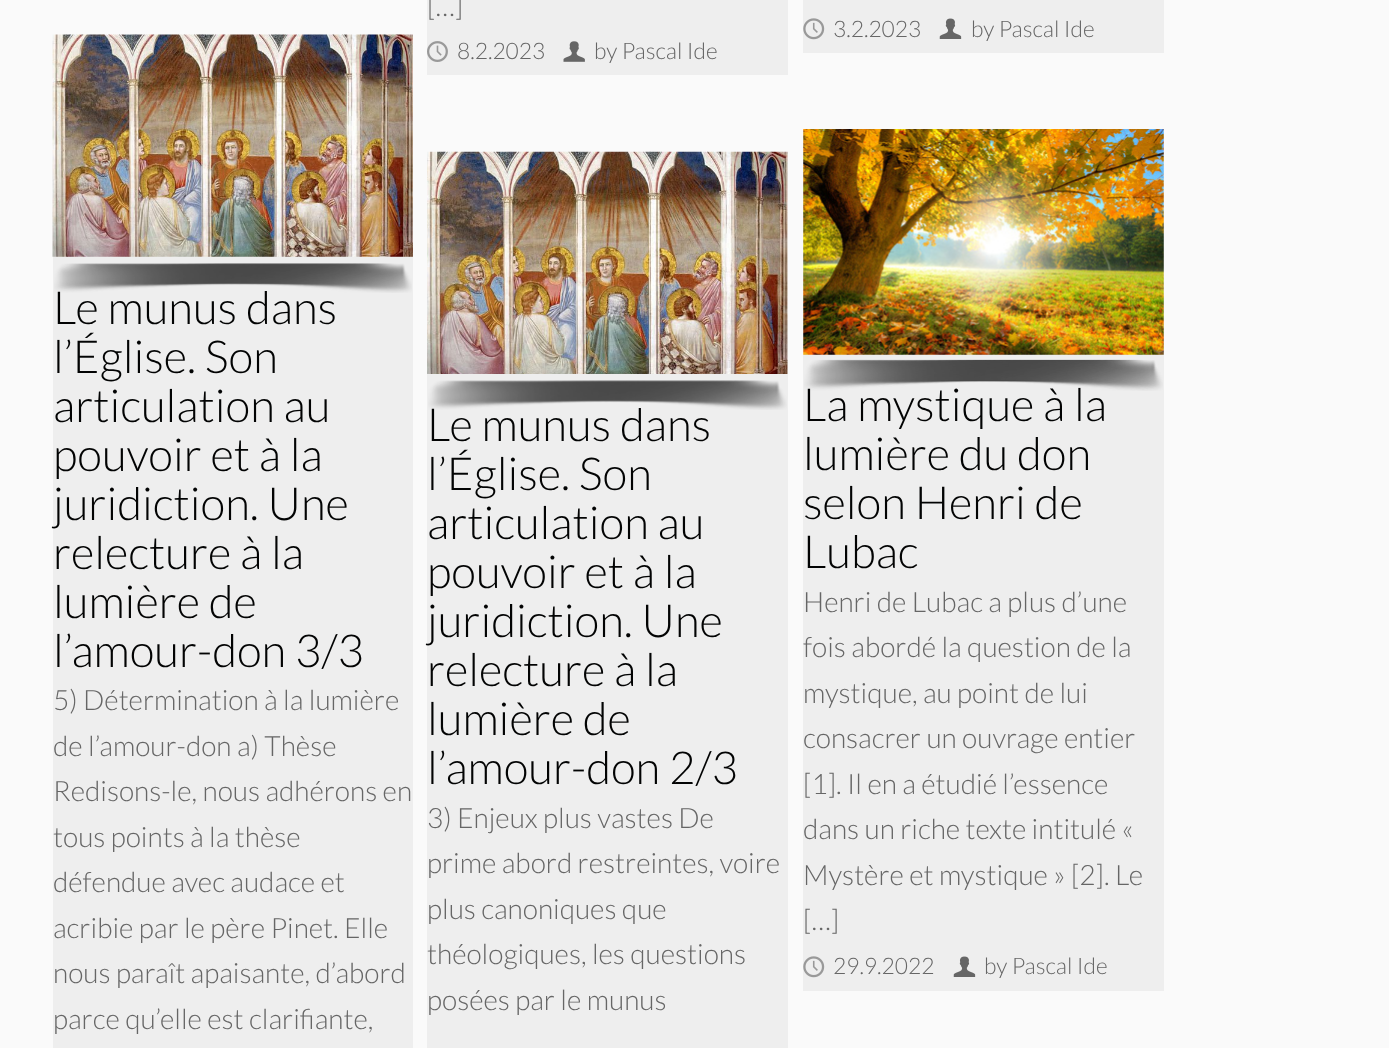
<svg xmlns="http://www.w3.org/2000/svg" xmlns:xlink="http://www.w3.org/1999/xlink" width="1389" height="1048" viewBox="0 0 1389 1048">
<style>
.cls-1{font:300 28px Lato;fill:#666666}
.cls-2{font:300 22.75px Lato;fill:#666666}
.cls-3{font:300 45.5px Lato;fill:#020303}
</style>
<rect width="100%" height="100%" fill="#fafafa"/>
<rect fill="#eeeeee" x="427" y="0" width="361" height="75"/>
<image xlink:href="image0.png" x="427" y="41" width="21" height="21"/>
<image xlink:href="image1.png" x="563" y="41" width="22" height="21"/>
<rect fill="#eeeeee" x="803" y="0" width="361" height="53"/>
<image xlink:href="image2.png" x="803" y="18" width="22" height="22"/>
<image xlink:href="image3.png" x="939" y="18" width="23" height="21"/>
<rect fill="#eeeeee" x="53" y="256" width="360" height="792"/>
<image xlink:href="image4.png" x="52" y="34" width="361" height="223"/>
<image xlink:href="image5.png" x="54" y="263" width="358" height="30"/>
<rect fill="#eeeeee" x="427" y="152" width="361" height="896"/>
<image xlink:href="image6.png" x="427" y="151" width="361" height="223"/>
<image xlink:href="image7.png" x="428" y="380" width="359" height="30"/>
<rect fill="#eeeeee" x="803" y="130" width="361" height="861"/>
<image xlink:href="image8.png" x="803" y="129" width="361" height="226"/>
<image xlink:href="image9.png" x="804" y="359" width="359" height="32"/>
<image xlink:href="image2.png" x="803" y="956" width="22" height="22"/>
<image xlink:href="image3.png" x="953" y="956" width="23" height="21"/>
<text class="cls-1" x="427" y="16">[…]</text>
<text class="cls-2" x="457" y="59">8.2.2023</text>
<text class="cls-2" x="594" y="59">by Pascal Ide</text>
<text class="cls-2" x="833" y="37">3.2.2023</text>
<text class="cls-2" x="971" y="37">by Pascal Ide</text>
<text class="cls-3"><tspan x="53" y="324">Le munus dans</tspan><tspan x="53" y="373">l’Église. Son</tspan><tspan x="53" y="422">articulation au</tspan><tspan x="53" y="471">pouvoir et à la</tspan><tspan x="53" y="520">juridiction. Une</tspan><tspan x="53" y="569">relecture à la</tspan><tspan x="53" y="618">lumière de</tspan><tspan x="53" y="667">l’amour-don 3/3</tspan></text>
<text class="cls-1"><tspan x="53" y="710">5) Détermination à la lumière</tspan><tspan x="53" y="756">de l’amour-don a) Thèse</tspan><tspan x="53" y="801">Redisons-le, nous adhérons en</tspan><tspan x="53" y="847">tous points à la thèse</tspan><tspan x="53" y="892">défendue avec audace et</tspan><tspan x="53" y="938">acribie par le père Pinet. Elle</tspan><tspan x="53" y="983">nous paraît apaisante, d’abord</tspan><tspan x="53" y="1029">parce qu’elle est clarifiante,</tspan></text>
<text class="cls-3"><tspan x="427" y="441">Le munus dans</tspan><tspan x="427" y="490">l’Église. Son</tspan><tspan x="427" y="539">articulation au</tspan><tspan x="427" y="588">pouvoir et à la</tspan><tspan x="427" y="637">juridiction. Une</tspan><tspan x="427" y="686">relecture à la</tspan><tspan x="427" y="735">lumière de</tspan><tspan x="427" y="784">l’amour-don 2/3</tspan></text>
<text class="cls-1"><tspan x="427" y="828">3) Enjeux plus vastes De</tspan><tspan x="427" y="873">prime abord restreintes, voire</tspan><tspan x="427" y="919">plus canoniques que</tspan><tspan x="427" y="964">théologiques, les questions</tspan><tspan x="427" y="1010">posées par le munus</tspan></text>
<text class="cls-3"><tspan x="803" y="421">La mystique à la</tspan><tspan x="803" y="470">lumière du don</tspan><tspan x="803" y="519">selon Henri de</tspan><tspan x="803" y="568">Lubac</tspan></text>
<text class="cls-1"><tspan x="803" y="612">Henri de Lubac a plus d’une</tspan><tspan x="803" y="657">fois abordé la question de la</tspan><tspan x="803" y="703">mystique, au point de lui</tspan><tspan x="803" y="748">consacrer un ouvrage entier</tspan><tspan x="803" y="794">[1]. Il en a étudié l’essence</tspan><tspan x="803" y="839">dans un riche texte intitulé «</tspan><tspan x="803" y="885">Mystère et mystique » [2]. Le</tspan><tspan x="803" y="930">[…]</tspan></text>
<text class="cls-2" x="833" y="974">29.9.2022</text>
<text class="cls-2" x="984" y="974">by Pascal Ide</text>
</svg>
